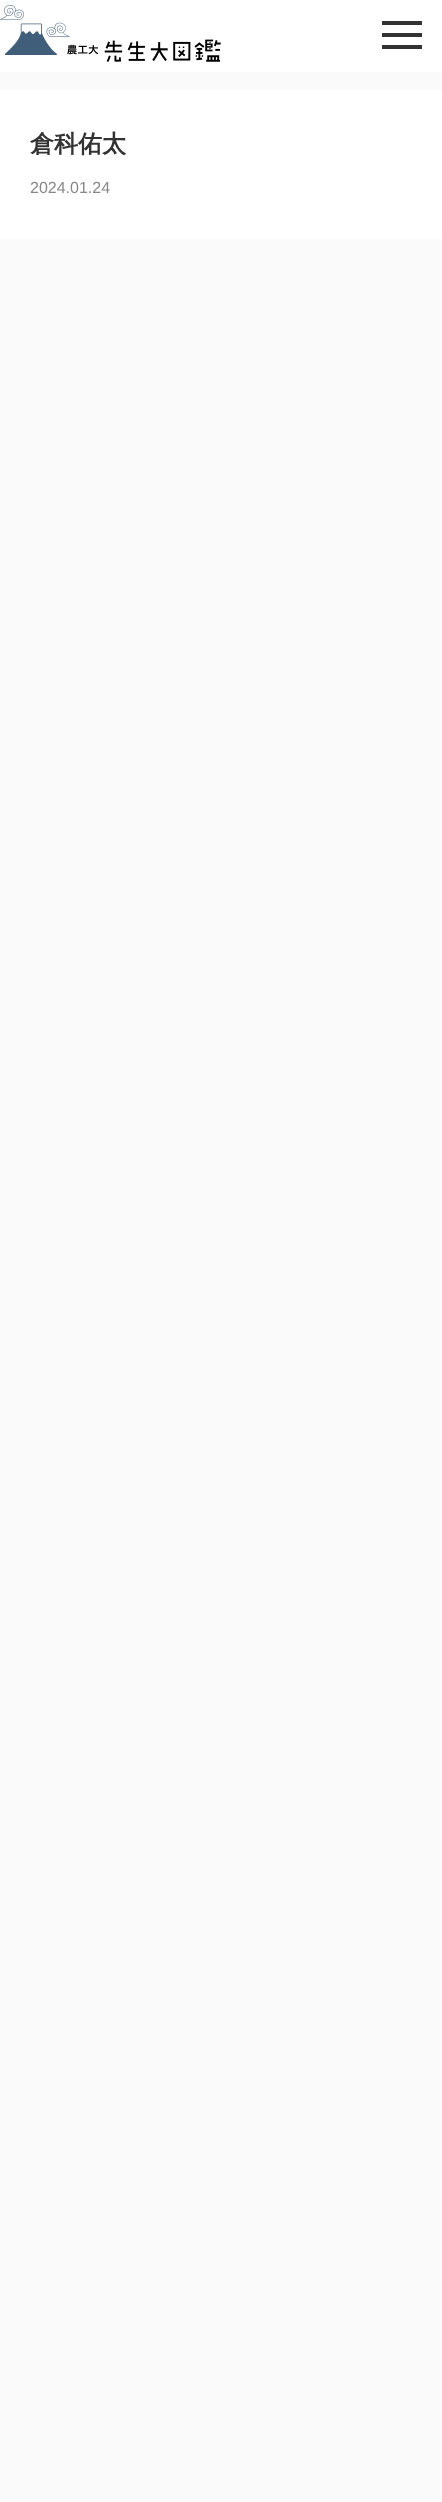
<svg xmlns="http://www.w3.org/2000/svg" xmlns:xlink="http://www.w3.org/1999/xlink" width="442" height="2502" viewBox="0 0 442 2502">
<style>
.cls-1{font:bold 24px WenQuanYi Zen Hei;fill:#333333}
.cls-2{font:16px Liberation Sans;fill:#888888}
</style>
<rect width="100%" height="100%" fill="#fafafa"/>
<rect fill="#ffffff" x="0" y="0" width="442" height="72"/>
<image xlink:href="image0.png" x="0" y="5" width="221" height="57"/>
<rect fill="#333333" x="382" y="33" width="40" height="4"/>
<rect fill="#333333" x="382" y="21" width="40" height="4"/>
<rect fill="#333333" x="382" y="45" width="40" height="4"/>
<rect fill="#ffffff" x="0" y="90" width="442" height="149"/>
<text class="cls-1" x="30" y="152">倉科佑太</text>
<text class="cls-2" x="30" y="193">2024.01.24</text>
</svg>
